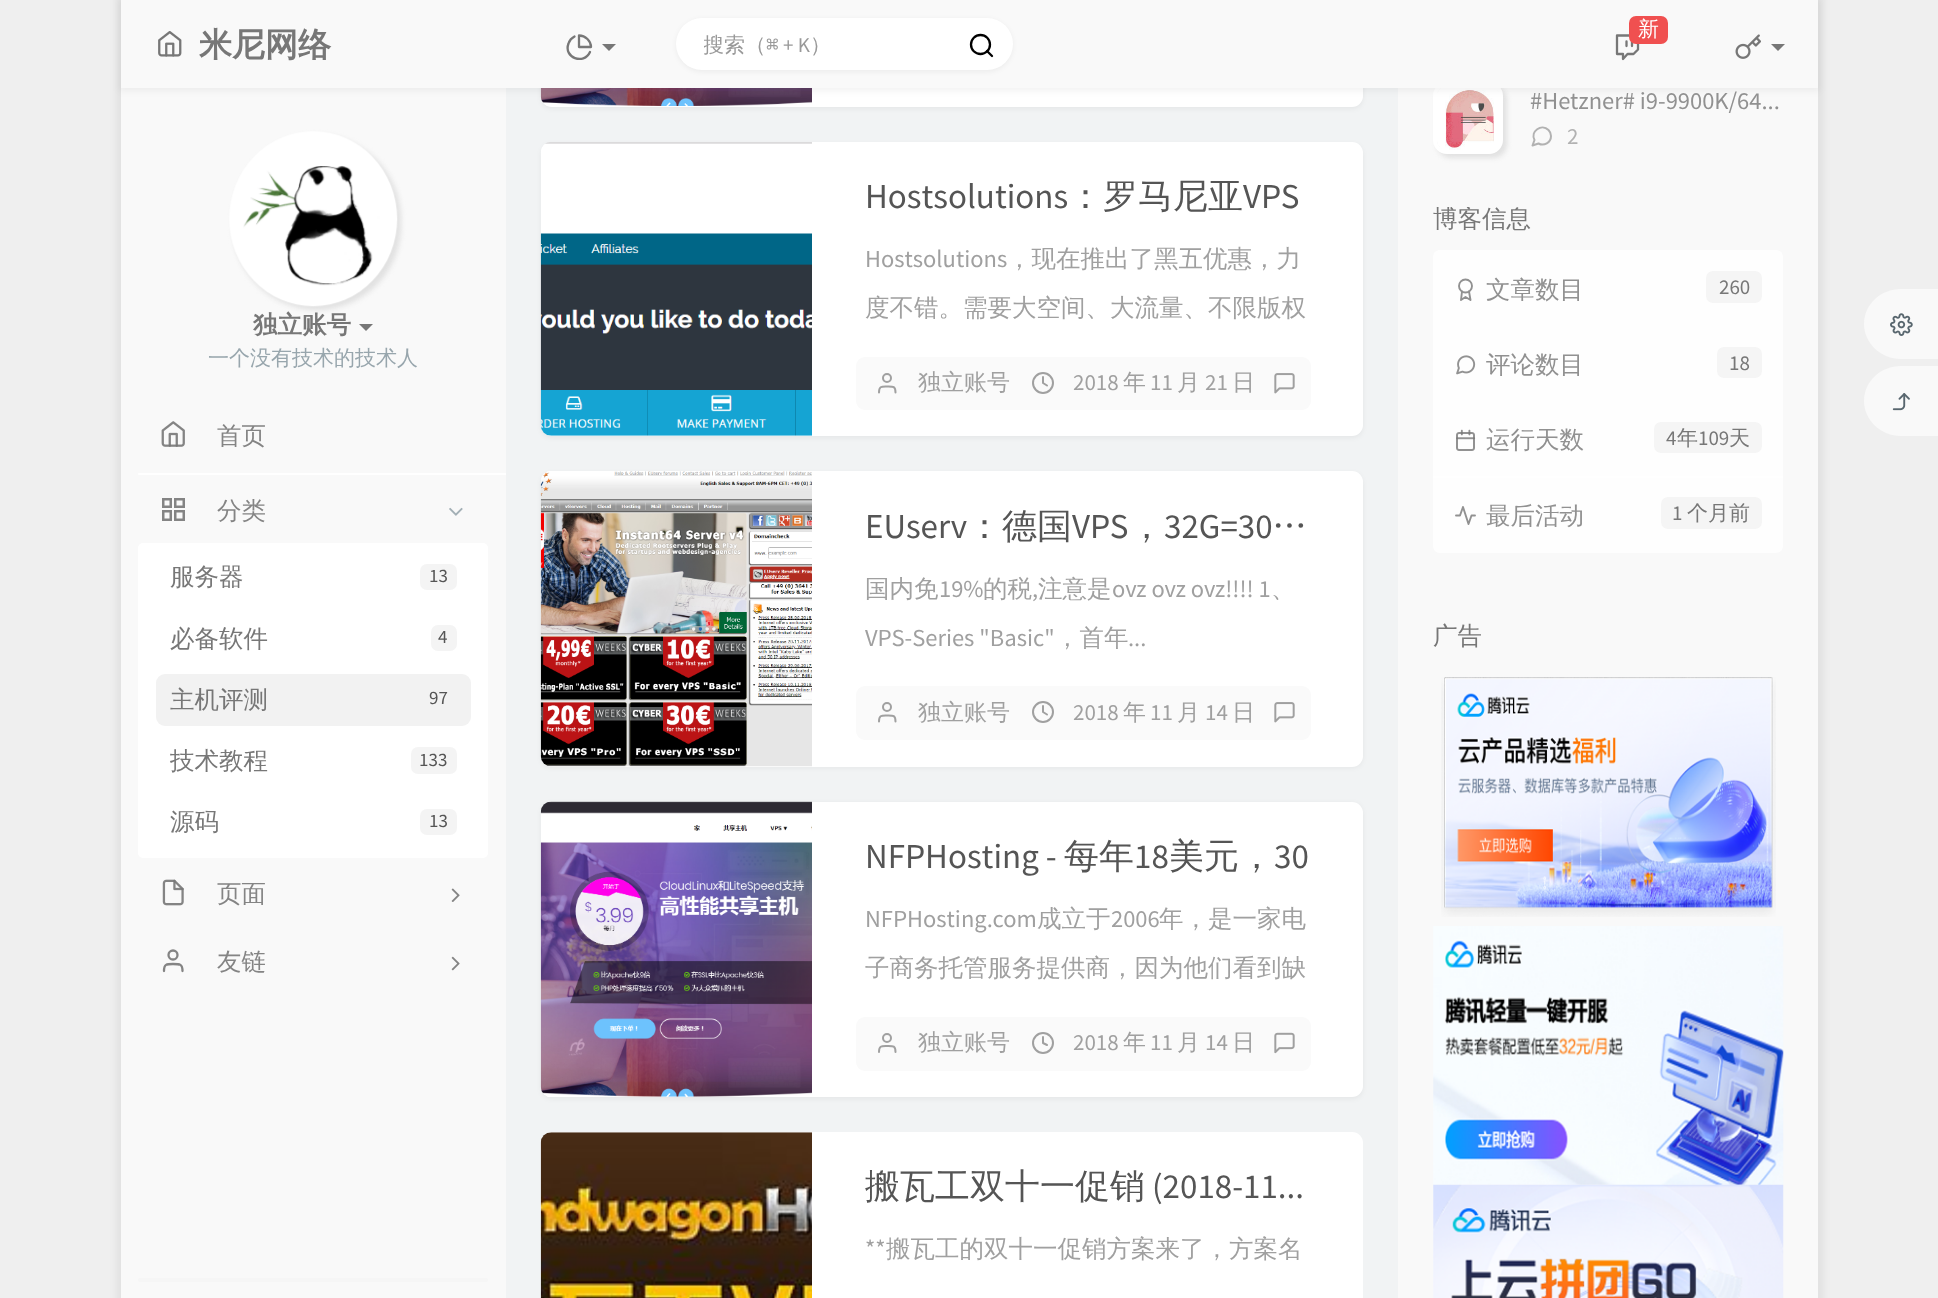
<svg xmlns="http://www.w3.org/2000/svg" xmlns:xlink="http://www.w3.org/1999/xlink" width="1938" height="1298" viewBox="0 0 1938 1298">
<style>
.cls-1{font:bold 33px WenQuanYi Zen Hei;fill:#777777}
.cls-2{font:500 21px WenQuanYi Zen Hei;fill:#ffffff}
.cls-3{font:500 21px WenQuanYi Zen Hei;fill:#999999}
.cls-4{font:21px DejaVu Sans Mono;fill:#999999}
.cls-5{font:21px Source Sans Pro;fill:#999999}
.cls-6{font:bold 24.5px WenQuanYi Zen Hei;fill:#777777}
.cls-7{font:500 21px WenQuanYi Zen Hei;fill:#98a6ad}
.cls-8{font:500 24.5px WenQuanYi Zen Hei;fill:#848484}
.cls-9{font:500 24.5px WenQuanYi Zen Hei;fill:#777777}
.cls-10{font:19px Source Sans Pro;fill:#555555}
.cls-11{font:35px Source Sans Pro;fill:#555555}
.cls-12{font:500 35px WenQuanYi Zen Hei;fill:#555555}
.cls-13{font:24.5px Source Sans Pro;fill:#a0a0a0}
.cls-14{font:500 24.5px WenQuanYi Zen Hei;fill:#a0a0a0}
.cls-15{font:500 23px WenQuanYi Zen Hei;fill:#a0a0a0}
.cls-16{font:23px Source Sans Pro;fill:#a0a0a0}
.cls-17{font:24.5px Source Sans Pro;fill:#919191}
.cls-18{font:23px Source Sans Pro;fill:#b2b2b2}
.cls-19{font:500 24.5px WenQuanYi Zen Hei;fill:#919191}
.cls-20{font:21px Source Sans Pro;fill:#777777}
.cls-21{font:500 21px WenQuanYi Zen Hei;fill:#777777}
</style>
<defs>
<clipPath id="clip1"><rect x="704" y="32" width="213" height="29"/></clipPath>
<clipPath id="clip2"><rect x="1398" y="207" width="420" height="381"/></clipPath>
</defs>
<rect width="100%" height="100%" fill="#efefef"/>
<rect fill="#000000" fill-opacity="0.05" filter="blur(3.5px)" x="116" y="-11" width="1708" height="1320"/>
<rect fill="#f9f9f9" x="121" y="88" width="385" height="1210"/>
<rect fill="#f1f3f4" x="506" y="88" width="892" height="1210"/>
<rect fill="#000000" fill-opacity="0.05" filter="blur(2.5px)" x="541" y="-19" width="822" height="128" rx="11"/>
<rect fill="#ffffff" x="541" y="-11" width="822" height="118" rx="11"/>
<image xlink:href="image8.png" x="540" y="88" width="272" height="18"/>
<rect fill="#f9f9f9" x="1398" y="88" width="420" height="1210"/>
<rect fill="#e1e1e1" filter="blur(2.5px)" x="1437" y="86" width="70" height="72" rx="14"/>
<rect fill="none" stroke="#ffffff" stroke-width="4" x="1435" y="84" width="66" height="68" rx="12"/>
<image xlink:href="image15.png" x="1437" y="88" width="62" height="62"/>
<rect fill="#000000" fill-opacity="0.05" filter="blur(3.5px)" x="119" y="0" width="1701" height="91"/>
<rect fill="#f9f9f9" x="121" y="0" width="1697" height="88"/>
<image xlink:href="image0.png" x="158" y="31" width="24" height="26"/>
<path fill="none" stroke="#777777" stroke-width="2.3" stroke-linecap="round" stroke-linejoin="round" d="M1638 35.5H1617V54H1623V59L1627.5 54H1633.5L1638 49.5ZM1626.5 46V41.5M1632 46V41.5"/>
<rect fill="#f05050" x="1629" y="16" width="39" height="28" rx="7"/>
<image xlink:href="image1.png" x="1735" y="34" width="26" height="25"/>
<path fill="#777777" d="M1771 44H1785L1778 51Z"/>
<path fill="none" stroke="#777777" stroke-width="2.3" stroke-linecap="round" stroke-linejoin="round" d="M590 52C584 65.5 563 57.5 568.5 43.5C569.5 40.5 571.5 38 574.5 36.5M591 47C591 41 585.5 35.5 579 35.5V47Z"/>
<path fill="#777777" d="M602 44H616L609 51Z"/>
<rect fill="#000000" fill-opacity="0.05" filter="blur(2.5px)" x="676" y="19" width="337" height="53" rx="26.5"/>
<rect fill="#ffffff" x="676" y="18" width="337" height="52" rx="26"/>
<circle fill="none" stroke="#000000" stroke-width="2.3" cx="980.5" cy="44.5" r="9.5"/>
<path fill="none" stroke="#000000" stroke-width="2.3" stroke-linecap="round" stroke-linejoin="round" d="M992 56L987 51"/>
<rect fill="#e1e1e1" filter="blur(2.5px)" x="233" y="135" width="168" height="175" rx="84"/>
<image xlink:href="image2.png" x="229" y="131" width="169" height="176"/>
<path fill="#777777" d="M359 324H373L366 331Z"/>
<image xlink:href="image3.png" x="161" y="421" width="24" height="26"/>
<path fill="#ffffff" d="M139 473H506V475H139C138.5 475 138 474.5 138 474C138 473.5 138.5 473 139 473Z"/>
<rect fill="none" stroke="#848484" stroke-width="2.5" x="163.25" y="499.25" width="7.5" height="7.5"/>
<rect fill="none" stroke="#848484" stroke-width="2.5" x="175.25" y="499.25" width="8.5" height="7.5"/>
<rect fill="none" stroke="#848484" stroke-width="2.5" x="163.25" y="511.25" width="7.5" height="8.5"/>
<rect fill="none" stroke="#848484" stroke-width="2.5" x="175.25" y="511.25" width="8.5" height="8.5"/>
<image xlink:href="image4.png" x="449" y="507" width="14" height="9"/>
<rect fill="#ffffff" x="138" y="543" width="350" height="315" rx="5"/>
<rect fill="#f4f4f4" x="420" y="564" width="37" height="26" rx="7"/>
<rect fill="#f4f4f4" x="431" y="625" width="26" height="26" rx="7"/>
<rect fill="#f2f2f2" x="156" y="674" width="315" height="52" rx="9"/>
<rect fill="#f4f4f4" x="411" y="747" width="46" height="27" rx="7"/>
<rect fill="#f4f4f4" x="420" y="809" width="37" height="26" rx="7"/>
<image xlink:href="image5.png" x="162" y="879" width="22" height="27"/>
<image xlink:href="image6.png" x="451" y="888" width="9" height="14"/>
<circle fill="none" stroke="#848484" stroke-width="2.3" cx="173" cy="955" r="4.5"/>
<path fill="none" stroke="#848484" stroke-width="2.3" stroke-linecap="round" stroke-linejoin="round" d="M182.5 971C182.5 964 180 964 173 964C166.5 964 164 964 164 971"/>
<image xlink:href="image7.png" x="451" y="956" width="9" height="15"/>
<rect fill="#f6f6f6" x="138" y="1278" width="350" height="4" rx="2"/>
<rect fill="#000000" fill-opacity="0.05" filter="blur(2.5px)" x="541" y="144" width="822" height="294" rx="11"/>
<rect fill="#ffffff" x="541" y="142" width="822" height="294" rx="11"/>
<image xlink:href="image9.png" x="540" y="142" width="272" height="294"/>
<rect fill="#fafafa" x="856" y="357" width="455" height="53" rx="9"/>
<circle fill="none" stroke="#a0a0a0" stroke-width="2" cx="887" cy="378" r="4"/>
<path fill="none" stroke="#a0a0a0" stroke-width="2" stroke-linecap="round" stroke-linejoin="round" d="M895.5 392.5C895.5 386 893 386.5 887 386.5C881.5 386.5 879 386 879 392.5"/>
<circle fill="none" stroke="#a0a0a0" stroke-width="2" cx="1043" cy="383" r="10"/>
<path fill="none" stroke="#a0a0a0" stroke-width="2" stroke-linecap="round" stroke-linejoin="round" d="M1043 377V383L1047 385.5"/>
<image xlink:href="image10.png" x="1274" y="373" width="21" height="21"/>
<rect fill="#000000" fill-opacity="0.05" filter="blur(2.5px)" x="541" y="473" width="822" height="295" rx="11"/>
<rect fill="#ffffff" x="541" y="471" width="822" height="296" rx="11"/>
<image xlink:href="image11.png" x="540" y="471" width="272" height="296"/>
<rect fill="#fafafa" x="856" y="686" width="455" height="54" rx="9"/>
<circle fill="none" stroke="#a0a0a0" stroke-width="2" cx="887" cy="707" r="4"/>
<path fill="none" stroke="#a0a0a0" stroke-width="2" stroke-linecap="round" stroke-linejoin="round" d="M895.5 721.5C895.5 715 893 715.5 887 715.5C881.5 715.5 879 715 879 721.5"/>
<circle fill="none" stroke="#a0a0a0" stroke-width="2" cx="1043" cy="712" r="10"/>
<path fill="none" stroke="#a0a0a0" stroke-width="2" stroke-linecap="round" stroke-linejoin="round" d="M1043 706V712L1047 714.5"/>
<image xlink:href="image10.png" x="1274" y="702" width="21" height="21"/>
<rect fill="#000000" fill-opacity="0.05" filter="blur(2.5px)" x="541" y="803" width="822" height="296" rx="11"/>
<rect fill="#ffffff" x="541" y="802" width="822" height="295" rx="11"/>
<image xlink:href="image12.png" x="540" y="801" width="272" height="296"/>
<rect fill="#fafafa" x="856" y="1017" width="455" height="54" rx="9"/>
<circle fill="none" stroke="#a0a0a0" stroke-width="2" cx="887" cy="1038" r="4"/>
<path fill="none" stroke="#a0a0a0" stroke-width="2" stroke-linecap="round" stroke-linejoin="round" d="M895.5 1052C895.5 1045.5 893 1046 887 1046C881.5 1046 879 1045.5 879 1052"/>
<circle fill="none" stroke="#a0a0a0" stroke-width="2" cx="1043" cy="1043" r="10"/>
<path fill="none" stroke="#a0a0a0" stroke-width="2" stroke-linecap="round" stroke-linejoin="round" d="M1043 1037V1043L1047 1045"/>
<image xlink:href="image13.png" x="1274" y="1032" width="21" height="22"/>
<rect fill="#ffffff" x="541" y="1132" width="822" height="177" rx="11"/>
<image xlink:href="image14.png" x="540" y="1132" width="272" height="166"/>
<path fill="none" stroke="#b2b2b2" stroke-width="2" stroke-linecap="round" stroke-linejoin="round" d="M1551 136C1551 142.5 1544 146.5 1538.5 143.5L1532.5 145.5L1534.5 140C1530 131.5 1541.5 123 1548.5 130C1550 131.5 1551 133.5 1551 136Z"/>
<path fill="#fefefe" d="M1440 250H1776C1780 250 1783 253 1783 257V327H1433V257C1433 253 1436 250 1440 250Z"/>
<circle fill="none" stroke="#919191" stroke-width="1.9" cx="1465.5" cy="286" r="6.5"/>
<path fill="none" stroke="#919191" stroke-width="1.9" stroke-linecap="round" stroke-linejoin="round" d="M1462 291.5L1461 300L1465.5 297L1470.5 300L1469 291.5"/>
<rect fill="#f5f5f5" x="1706" y="271" width="56" height="32" rx="7"/>
<rect fill="#ffffff" fill-opacity="0.8" x="1433" y="327" width="350" height="76"/>
<image xlink:href="image16.png" x="1456" y="355" width="20" height="20"/>
<rect fill="#f5f5f5" x="1717" y="347" width="45" height="31" rx="7"/>
<rect fill="#ffffff" fill-opacity="0.8" x="1433" y="403" width="350" height="75"/>
<image xlink:href="image17.png" x="1456" y="429" width="20" height="22"/>
<rect fill="#f5f5f5" x="1654" y="422" width="108" height="31" rx="7"/>
<path fill="#ffffff" fill-opacity="0.8" d="M1433 476H1783V546C1783 550 1780 553 1776 553H1440C1436 553 1433 550 1433 546Z"/>
<path fill="none" stroke="#919191" stroke-width="1.9" stroke-linecap="round" stroke-linejoin="round" d="M1475 515.5H1471.5L1468.5 524L1463 507L1460 515.5H1456"/>
<rect fill="#f5f5f5" x="1661" y="497" width="101" height="32" rx="7"/>
<image xlink:href="image18.png" x="1441" y="677" width="335" height="240"/>
<image xlink:href="image19.png" x="1433" y="926" width="351" height="259"/>
<image xlink:href="image20.png" x="1433" y="1184" width="351" height="114"/>
<path fill="#f9f9f9" d="M1901 366H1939V436H1901C1881 436 1864 420 1864 401C1864 381 1881 366 1901 366Z"/>
<image xlink:href="image21.png" x="1892" y="393" width="18" height="18"/>
<path fill="#f9f9f9" d="M1901 289H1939V359H1901C1881 359 1864 343 1864 324C1864 304 1881 289 1901 289Z"/>
<image xlink:href="image22.png" x="1890" y="313" width="23" height="23"/>
<text class="cls-1" x="199" y="56">米尼网络</text>
<text class="cls-2" x="1638" y="36">新</text>
<g clip-path="url(#clip1)">
<text class="cls-3" x="703" y="52">搜索（</text>
</g>
<text class="cls-4" x="766" y="52">⌘</text>
<text class="cls-5" x="783" y="52">+ K</text>
<text class="cls-3" x="810" y="52">）</text>
<text class="cls-6" x="253" y="333">独立账号</text>
<text class="cls-7" x="208" y="365">一个没有技术的技术人</text>
<text class="cls-8" x="217" y="444">首页</text>
<text class="cls-8" x="217" y="519">分类</text>
<text class="cls-9" x="170" y="585">服务器</text>
<text class="cls-10" x="429" y="582">13</text>
<text class="cls-9" x="170" y="647">必备软件</text>
<text class="cls-10" x="438" y="643">4</text>
<text class="cls-9" x="170" y="708">主机评测</text>
<text class="cls-10" x="429" y="704">97</text>
<text class="cls-9" x="170" y="769">技术教程</text>
<text class="cls-10" x="419" y="766">133</text>
<text class="cls-9" x="170" y="830">源码</text>
<text class="cls-10" x="429" y="827">13</text>
<text class="cls-8" x="217" y="902">页面</text>
<text class="cls-8" x="217" y="970">友链</text>
<text class="cls-11" x="865" y="208">Hostsolutions</text>
<text class="cls-12" x="1068" y="208">：罗马尼亚</text>
<text class="cls-11" x="1243" y="208">VPS</text>
<text class="cls-13" x="865" y="267">Hostsolutions</text>
<text class="cls-14" x="1007" y="267">，现在推出了黑五优惠，力</text>
<text class="cls-14" x="865" y="316">度不错。需要大空间、大流量、不限版权</text>
<text class="cls-15" x="918" y="390">独立账号</text>
<text class="cls-16" x="1073" y="390">2018</text>
<text class="cls-15" x="1123" y="390">年</text>
<text class="cls-16" x="1150" y="390">11</text>
<text class="cls-15" x="1177" y="390">月</text>
<text class="cls-16" x="1205" y="390">21</text>
<text class="cls-15" x="1232" y="390">日</text>
<text class="cls-11" x="865" y="538">EUserv</text>
<text class="cls-12" x="967" y="538">：德国</text>
<text class="cls-11" x="1072" y="538">VPS</text>
<text class="cls-11" x="1164" y="538">32G=30</text>
<text class="cls-12" x="1272" y="538">…</text>
<text class="cls-12" x="1129" y="538">，</text>
<text class="cls-14" x="865" y="597">国内免</text>
<text class="cls-13" x="939" y="597">19%</text>
<text class="cls-14" x="983" y="597">的税</text>
<text class="cls-13" x="1032" y="597">,</text>
<text class="cls-14" x="1038" y="597">注意是</text>
<text class="cls-13" x="1112" y="597">ovz ovz ovz!!!! 1</text>
<text class="cls-14" x="1271" y="597">、</text>
<text class="cls-13" x="865" y="646">VPS-Series "Basic"</text>
<text class="cls-14" x="1055" y="646">，首年</text>
<text class="cls-13" x="1128" y="646">...</text>
<text class="cls-15" x="918" y="720">独立账号</text>
<text class="cls-15" x="1123" y="720">年</text>
<text class="cls-15" x="1177" y="720">月</text>
<text class="cls-15" x="1232" y="720">日</text>
<text class="cls-16" x="1073" y="720">2018</text>
<text class="cls-16" x="1150" y="720">11</text>
<text class="cls-16" x="1205" y="720">14</text>
<text class="cls-11" x="865" y="868">NFPHosting -</text>
<text class="cls-12" x="1064" y="868">每年</text>
<text class="cls-11" x="1134" y="868">18</text>
<text class="cls-12" x="1169" y="868">美元，</text>
<text class="cls-11" x="1274" y="868">30</text>
<text class="cls-13" x="865" y="927">NFPHosting.com</text>
<text class="cls-14" x="1037" y="927">成立于</text>
<text class="cls-13" x="1111" y="927">2006</text>
<text class="cls-14" x="1159" y="927">年，是一家电</text>
<text class="cls-14" x="865" y="976">子商务托管服务提供商，因为他们看到缺</text>
<text class="cls-15" x="918" y="1050">独立账号</text>
<text class="cls-16" x="1073" y="1050">2018</text>
<text class="cls-15" x="1123" y="1050">年</text>
<text class="cls-16" x="1150" y="1050">11</text>
<text class="cls-15" x="1177" y="1050">月</text>
<text class="cls-16" x="1205" y="1050">14</text>
<text class="cls-15" x="1232" y="1050">日</text>
<text class="cls-12" x="865" y="1198">搬瓦工双十一促销</text>
<text class="cls-11" x="1152" y="1198">(2018-11...</text>
<text class="cls-13" x="865" y="1257">**</text>
<text class="cls-14" x="886" y="1257">搬瓦工的双十一促销方案来了，方案名</text>
<text class="cls-17" x="1530" y="109">#Hetzner# i9-9900K/64...</text>
<text class="cls-18" x="1567" y="144">2</text>
<g clip-path="url(#clip2)">
<text class="cls-9" x="1433" y="227">博客信息</text>
</g>
<text class="cls-19" x="1486" y="298">文章数目</text>
<text class="cls-20" x="1719" y="294">260</text>
<text class="cls-19" x="1486" y="373">评论数目</text>
<text class="cls-20" x="1729" y="370">18</text>
<text class="cls-19" x="1486" y="448">运行天数</text>
<text class="cls-20" x="1666" y="445">4</text>
<text class="cls-21" x="1677" y="445">年</text>
<text class="cls-20" x="1698" y="445">109</text>
<text class="cls-21" x="1729" y="445">天</text>
<text class="cls-19" x="1486" y="524">最后活动</text>
<text class="cls-20" x="1672" y="520">1</text>
<text class="cls-21" x="1687" y="520">个月前</text>
<text class="cls-9" x="1433" y="644">广告</text>
</svg>
